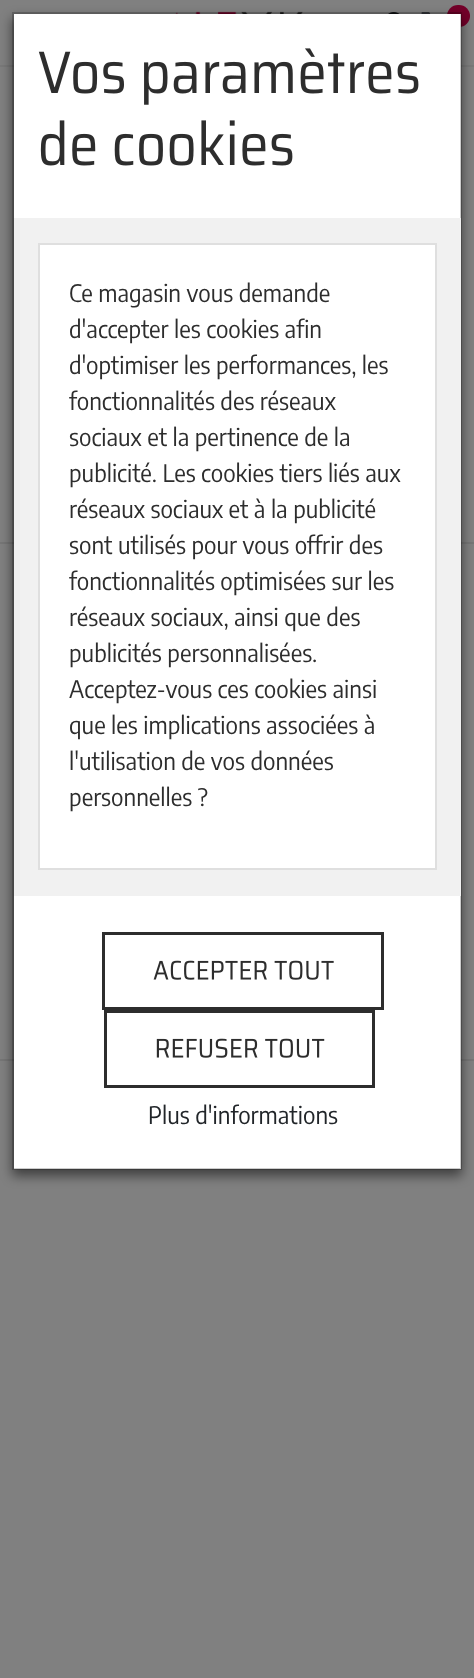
<svg xmlns="http://www.w3.org/2000/svg" xmlns:xlink="http://www.w3.org/1999/xlink" width="474" height="1678" viewBox="0 0 474 1678">
<style>
.cls-1{font:24px Encode Sans Semi Condensed;fill:#2d2d2d}
.cls-2{font:24px Encode Sans Semi Condensed;fill:#212529}
</style>
<rect width="100%" height="100%" fill="#808080"/>
<rect fill="#797979" x="0" y="65" width="474" height="2"/>
<image xlink:href="image0.png" x="175" y="11" width="128" height="3"/>
<image xlink:href="image1.png" x="388" y="12" width="12" height="2"/>
<image xlink:href="image2.png" x="421" y="12" width="10" height="2"/>
<rect fill="#730029" x="447" y="5" width="23" height="22" rx="11"/>
<rect fill="#767676" x="0" y="542" width="474" height="2"/>
<rect fill="#767676" x="0" y="1059" width="474" height="2"/>
<rect fill="#000000" fill-opacity="0.5" filter="blur(6px)" x="12" y="18" width="450" height="1158"/>
<rect fill="#ffffff" x="14" y="14" width="447" height="1155"/>
<rect fill="none" stroke="#000000" stroke-opacity="0.2" stroke-width="2" x="13" y="13" width="448" height="1156"/>
<rect fill="#f1f1f1" x="14" y="218" width="447" height="1"/>
<image xlink:href="image3.png" x="38" y="48" width="381" height="57"/>
<image xlink:href="image4.png" x="40" y="120" width="253" height="46"/>
<rect fill="#f1f1f1" x="14" y="219" width="447" height="677"/>
<rect fill="#ffffff" stroke="#dfdfdf" stroke-width="2" x="39" y="244" width="397" height="625"/>
<rect fill="none" stroke="#2d2d2d" stroke-width="3" x="103.5" y="933.5" width="279" height="75"/>
<image xlink:href="image5.png" x="153" y="960" width="181" height="20"/>
<rect fill="none" stroke="#2d2d2d" stroke-width="3" x="105.5" y="1011.5" width="268" height="75"/>
<image xlink:href="image6.png" x="156" y="1038" width="169" height="20"/>
<text class="cls-1"><tspan x="69" y="302">Ce magasin vous demande</tspan><tspan x="69" y="338">d'accepter les cookies afin</tspan><tspan x="69" y="374">d'optimiser les performances, les</tspan><tspan x="69" y="410">fonctionnalités des réseaux</tspan><tspan x="69" y="446">sociaux et la pertinence de la</tspan><tspan x="69" y="482">publicité. Les cookies tiers liés aux</tspan><tspan x="69" y="518">réseaux sociaux et à la publicité</tspan><tspan x="69" y="554">sont utilisés pour vous offrir des</tspan><tspan x="69" y="590">fonctionnalités optimisées sur les</tspan><tspan x="69" y="626">réseaux sociaux, ainsi que des</tspan><tspan x="69" y="662">publicités personnalisées.</tspan><tspan x="69" y="698">Acceptez-vous ces cookies ainsi</tspan><tspan x="69" y="734">que les implications associées à</tspan><tspan x="69" y="770">l'utilisation de vos données</tspan><tspan x="69" y="806">personnelles ?</tspan></text>
<text class="cls-2" x="148" y="1124">Plus d'informations</text>
</svg>
